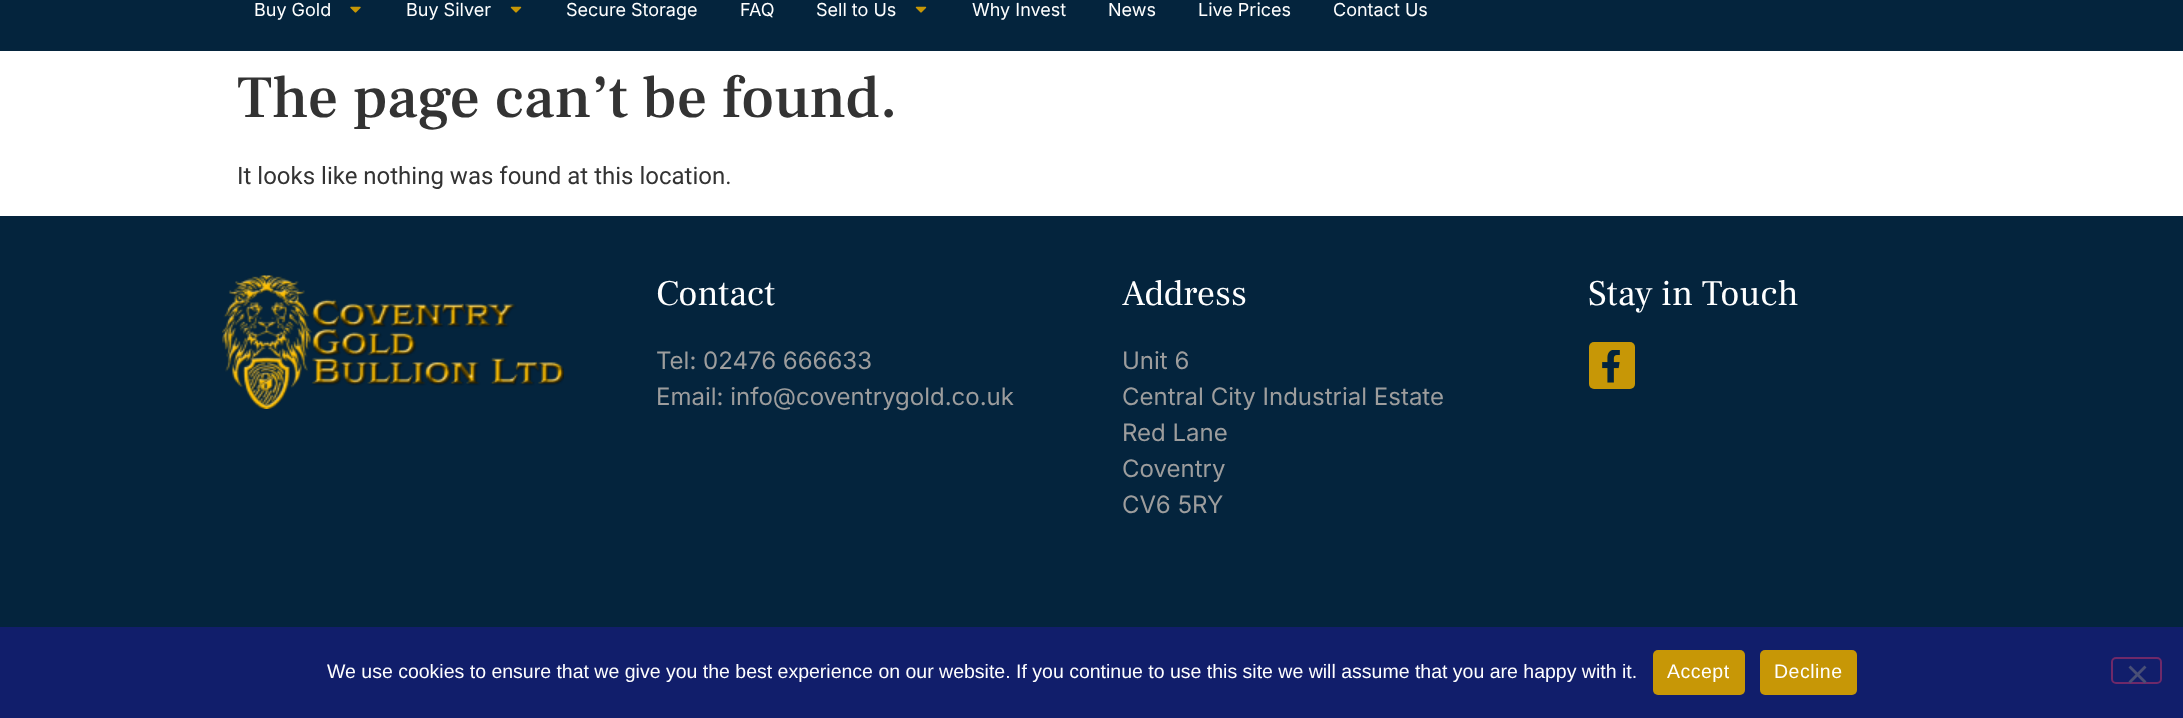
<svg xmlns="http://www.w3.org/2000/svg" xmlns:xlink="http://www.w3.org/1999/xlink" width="2183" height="718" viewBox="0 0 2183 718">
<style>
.cls-1{font:18px Inter;fill:#ffffff}
.cls-2{font:500 60px Frank Ruhl Libre;fill:#333333}
.cls-3{font:24px Roboto;fill:#333333}
.cls-4{font:36px Frank Ruhl Libre;fill:#ffffff}
.cls-5{font:24px Inter;fill:#9d9d9d}
.cls-6{font:19.5px Liberation Sans;fill:#ffffff}
.cls-7{font:19.5px Liberation Sans;letter-spacing:0.5px;fill:#ffffff}
</style>
<rect width="100%" height="100%" fill="#ffffff"/>
<rect fill="#04243d" x="0" y="0" width="2183" height="51"/>
<image xlink:href="image0.png" x="350" y="6" width="11" height="7"/>
<image xlink:href="image1.png" x="510" y="6" width="12" height="7"/>
<image xlink:href="image1.png" x="915" y="6" width="12" height="7"/>
<rect fill="#04243d" x="0" y="216" width="2183" height="411"/>
<image xlink:href="image2.png" x="222" y="275" width="342" height="134"/>
<rect fill="#c79706" x="1589" y="342" width="46" height="47" rx="5"/>
<image xlink:href="image3.png" x="1602" y="350" width="18" height="33"/>
<rect fill="#111e6b" x="0" y="627" width="2183" height="91"/>
<rect fill="#c79706" x="1653" y="650" width="92" height="45" rx="5"/>
<rect fill="#c79706" x="1760" y="650" width="97" height="45" rx="5"/>
<rect fill="none" stroke="#6f2969" stroke-width="2" x="2112" y="658" width="49" height="25" rx="4"/>
<path fill="#494f76" d="M2144.5 665.5L2146.5 667.5L2130.5 683.5L2128.5 681.5Z"/>
<path fill="#494f76" d="M2128.5 667.5L2130.5 665.5L2146.5 681.5L2144.5 683.5Z"/>
<text class="cls-1" x="254" y="16">Buy Gold</text>
<text class="cls-1" x="406" y="16">Buy Silver</text>
<text class="cls-1" x="566" y="16">Secure Storage</text>
<text class="cls-1" x="740" y="16">FAQ</text>
<text class="cls-1" x="816" y="16">Sell to Us</text>
<text class="cls-1" x="972" y="16">Why Invest</text>
<text class="cls-1" x="1108" y="16">News</text>
<text class="cls-1" x="1198" y="16">Live Prices</text>
<text class="cls-1" x="1333" y="16">Contact Us</text>
<text class="cls-2" x="237" y="117">The page can’t be found.</text>
<text class="cls-3" x="237" y="184">It looks like nothing was found at this location.</text>
<text class="cls-4" x="656" y="305">Contact</text>
<text class="cls-5"><tspan x="656" y="369">Tel: 02476 666633</tspan><tspan x="656" y="405">Email: info@coventrygold.co.uk</tspan></text>
<text class="cls-4" x="1122" y="305">Address</text>
<text class="cls-5"><tspan x="1122" y="369">Unit 6</tspan><tspan x="1122" y="405">Central City Industrial Estate</tspan><tspan x="1122" y="441">Red Lane</tspan><tspan x="1122" y="477">Coventry</tspan><tspan x="1122" y="513">CV6 5RY</tspan></text>
<text class="cls-4" x="1588" y="305">Stay in Touch</text>
<text class="cls-6" x="327" y="678">We use cookies to ensure that we give you the best experience on our website. If you continue to use this site we will assume that you are happy with it.</text>
<text class="cls-7" x="1667" y="678">Accept</text>
<text class="cls-7" x="1774" y="678">Decline</text>
</svg>
